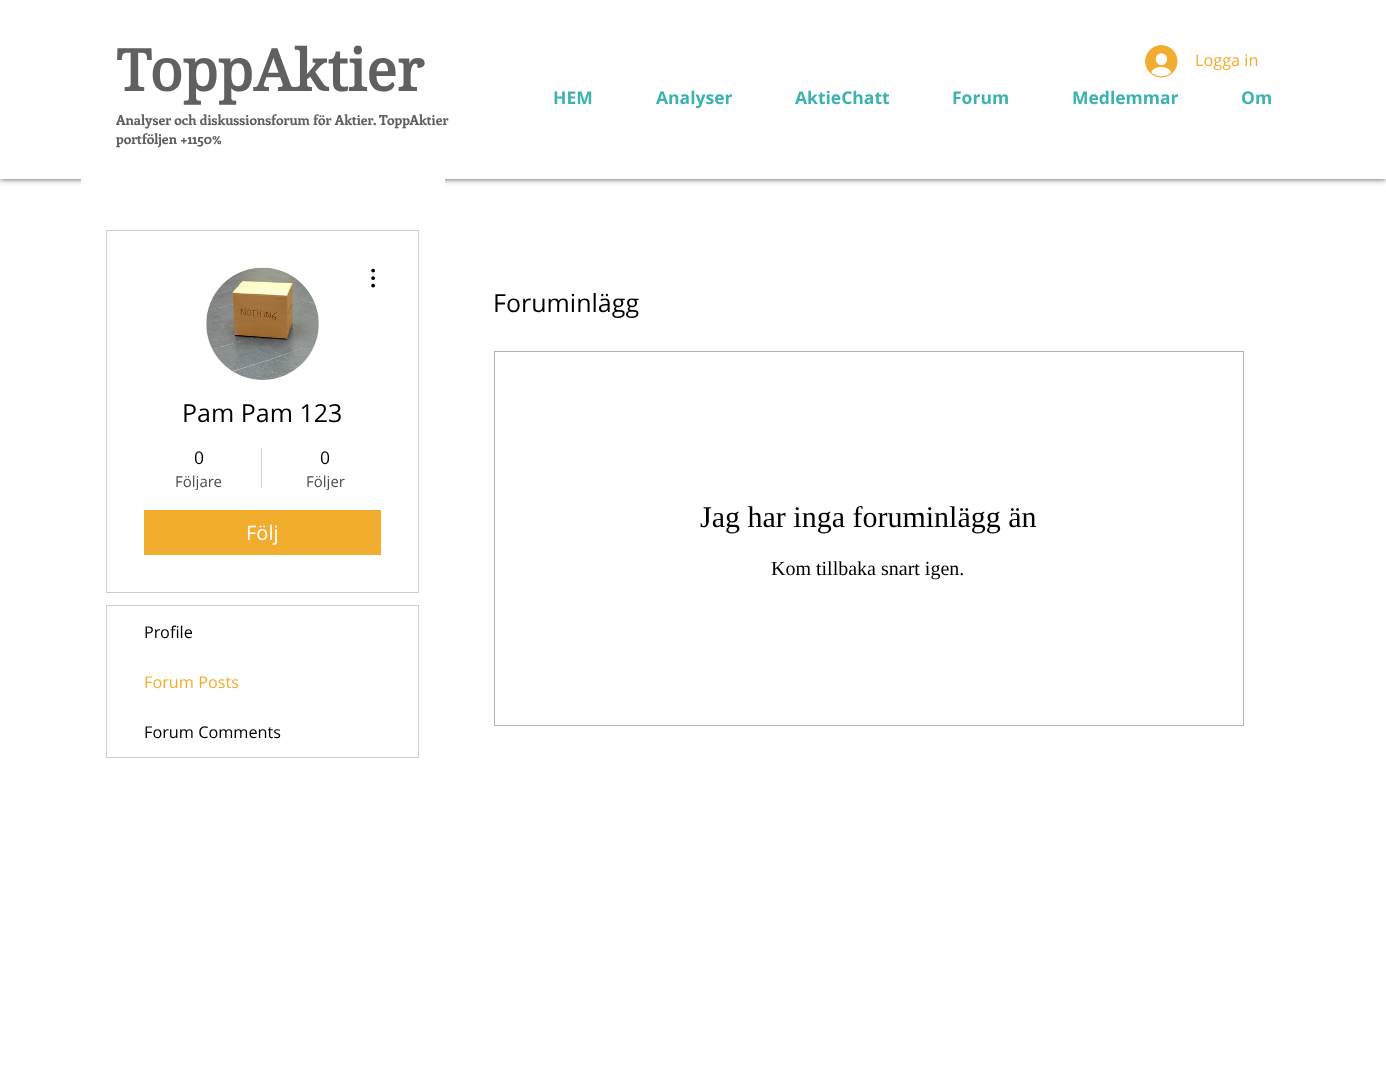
<svg xmlns="http://www.w3.org/2000/svg" xmlns:xlink="http://www.w3.org/1999/xlink" width="1386" height="1085" viewBox="0 0 1386 1085">
<style>
.cls-1{font:bold 57.5px 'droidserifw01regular';fill:#606060}
.cls-2{font:bold 13.75px Enriqueta;fill:#606060}
.cls-3{font:16.25px Open Sans;fill:#f2ad2e}
.cls-4{font:bold 17.5px Open Sans;fill:#3cb2b2}
.cls-5{font:25px Open Sans;fill:#000000}
.cls-6{font:17.5px Open Sans;fill:#000000}
.cls-7{font:15px Open Sans;fill:#4d4d4d}
.cls-8{font:20px Open Sans;fill:#ffffff}
.cls-9{font:16.25px Open Sans;fill:#000000}
.cls-10{font:30px Liberation Serif;fill:#000000}
.cls-11{font:20px Liberation Serif;fill:#000000}
</style>
<defs>
<clipPath id="clip1"><path d="M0 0H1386V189H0ZM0 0H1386V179H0Z" clip-rule="evenodd"/></clipPath>
<clipPath id="clip2"><rect x="175" y="470" width="48" height="20"/></clipPath>
<clipPath id="clip3"><rect x="305" y="470" width="40" height="20"/></clipPath>
</defs>
<rect width="100%" height="100%" fill="#ffffff"/>
<g clip-path="url(#clip1)">
<rect fill="#000000" fill-opacity="0.7" filter="blur(3px)" x="0" y="0" width="1386" height="179"/>
</g>
<rect fill="#ffffff" fill-opacity="0.6" x="0" y="178" width="1386" height="1"/>
<image xlink:href="image0.png" x="1145" y="45" width="33" height="33"/>
<rect fill="#ffffff" x="81" y="178" width="364" height="8"/>
<rect fill="none" stroke="#cccccc" x="106.5" y="230.5" width="312" height="362"/>
<rect fill="#d8d8d8" x="206" y="268" width="113" height="112" rx="56"/>
<image xlink:href="image1.png" x="206" y="267" width="113" height="113"/>
<image xlink:href="image2.png" x="371" y="268" width="4" height="20"/>
<rect fill="#cccccc" x="261" y="448" width="1" height="40"/>
<rect fill="#f2ad2e" x="144" y="510" width="237" height="45"/>
<rect fill="none" stroke="#cccccc" x="106.5" y="605.5" width="312" height="152"/>
<rect fill="none" stroke="#b3b3b3" x="494.5" y="351.5" width="749" height="374"/>
<text class="cls-1" x="116" y="91">ToppAktier</text>
<text class="cls-2"><tspan x="116" y="125">Analyser och diskussionsforum för Aktier. ToppAktier</tspan><tspan x="116" y="144">portföljen +1150%</tspan></text>
<text class="cls-3" x="1195" y="66">Logga in</text>
<text class="cls-4" x="553" y="104">HEM</text>
<text class="cls-4" x="656" y="104">Analyser</text>
<text class="cls-4" x="795" y="104">AktieChatt</text>
<text class="cls-4" x="952" y="104">Forum</text>
<text class="cls-4" x="1072" y="104">Medlemmar</text>
<text class="cls-4" x="1241" y="104">Om</text>
<text class="cls-5" x="182" y="422">Pam Pam 123</text>
<text class="cls-6" x="194" y="464">0</text>
<g clip-path="url(#clip2)">
<text class="cls-7" x="175" y="487">Följare</text>
</g>
<text class="cls-6" x="320" y="464">0</text>
<g clip-path="url(#clip3)">
<text class="cls-7" x="306" y="487">Följer</text>
</g>
<text class="cls-8" x="246" y="540">Följ</text>
<text class="cls-9" x="144" y="638">Profile</text>
<text class="cls-3" x="144" y="688">Forum Posts</text>
<text class="cls-9" x="144" y="738">Forum Comments</text>
<text class="cls-5" x="493" y="312">Foruminlägg</text>
<text class="cls-10" x="700" y="527">Jag har inga foruminlägg än</text>
<text class="cls-11" x="771" y="575">Kom tillbaka snart igen.</text>
</svg>
